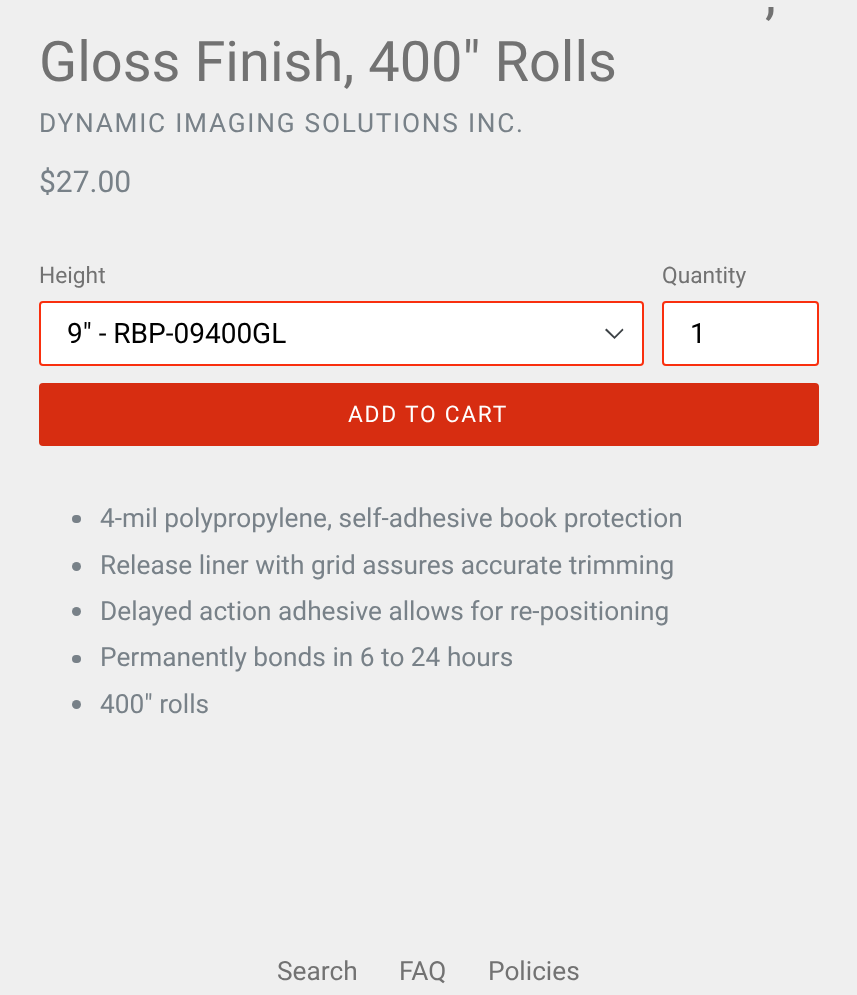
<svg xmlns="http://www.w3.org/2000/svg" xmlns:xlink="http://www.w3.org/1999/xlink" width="857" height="995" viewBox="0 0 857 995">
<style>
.cls-1{font:56px Roboto;fill:#727272}
.cls-2{font:26.25px Roboto;letter-spacing:1.75px;fill:#788188}
.cls-3{font:30px Roboto;fill:#788188}
.cls-4{font:22.75px Roboto;fill:#727272}
.cls-5{font:28px Roboto;fill:#000000}
.cls-6{font:22.75px Roboto;letter-spacing:1.75px;fill:#ffffff}
.cls-7{font:26.25px Roboto;fill:#788188}
.cls-8{font:26.25px Roboto;fill:#727272}
</style>
<rect width="100%" height="100%" fill="#efefef"/>
<rect fill="#ffffff" x="39" y="301" width="605" height="65" rx="4"/>
<path fill="#3d4246" d="M614.5 339L605 330L606.5 328.5L614.5 336.5L622.5 328.5L623.5 330Z"/>
<rect fill="none" stroke="#f92f0e" stroke-width="2" x="40" y="302" width="603" height="63" rx="3"/>
<rect fill="#ffffff" stroke="#f92f0e" stroke-width="2" x="663" y="302" width="155" height="63" rx="3"/>
<rect fill="#d72d11" x="39" y="383" width="780" height="63" rx="4"/>
<rect fill="#788188" x="72" y="515" width="9" height="8" rx="4"/>
<circle fill="#788188" cx="76.5" cy="566.5" r="4.5"/>
<circle fill="#788188" cx="76.5" cy="611.5" r="4.5"/>
<rect fill="#788188" x="72" y="655" width="9" height="8" rx="4"/>
<circle fill="#788188" cx="76.5" cy="704.5" r="4.5"/>
<text class="cls-1" x="765" y="13">,</text>
<text class="cls-1" x="39" y="81">Gloss Finish, 400" Rolls</text>
<text class="cls-2" x="39" y="132">DYNAMIC IMAGING SOLUTIONS INC.</text>
<text class="cls-3" x="39" y="192">$27.00</text>
<text class="cls-4" x="39" y="283">Height</text>
<text class="cls-5" x="67" y="343">9" - RBP-09400GL</text>
<text class="cls-4" x="662" y="283">Quantity</text>
<text class="cls-5" x="690" y="343">1</text>
<text class="cls-6" x="348" y="422">ADD TO CART</text>
<text class="cls-7"><tspan x="100" y="527">4-mil polypropylene, self-adhesive book protection</tspan><tspan x="100" y="574">Release liner with grid assures accurate trimming</tspan><tspan x="100" y="620">Delayed action adhesive allows for re-positioning</tspan><tspan x="100" y="666">Permanently bonds in 6 to 24 hours</tspan><tspan x="100" y="713">400" rolls</tspan></text>
<text class="cls-8" x="277" y="980">Search</text>
<text class="cls-8" x="399" y="980">FAQ</text>
<text class="cls-8" x="488" y="980">Policies</text>
</svg>
